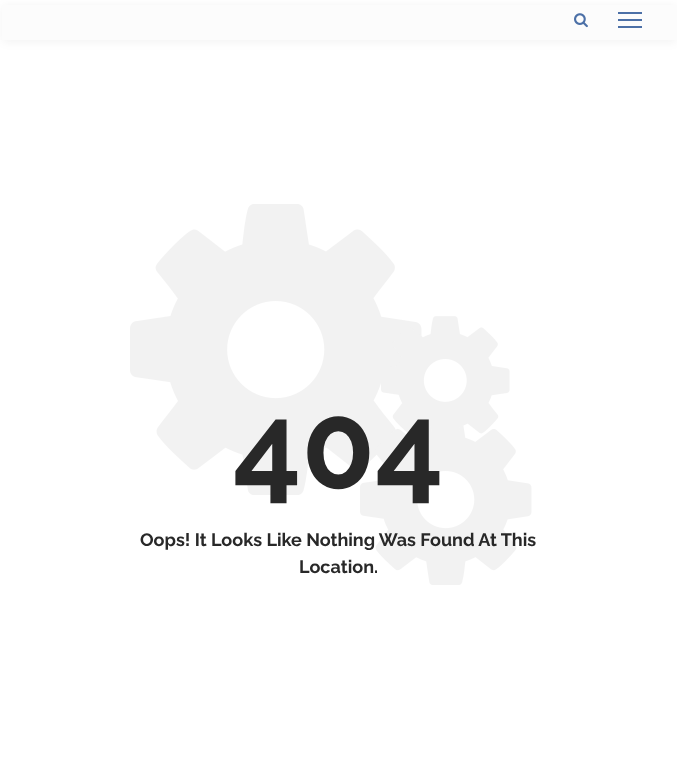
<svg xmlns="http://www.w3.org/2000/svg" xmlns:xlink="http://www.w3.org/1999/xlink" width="677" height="776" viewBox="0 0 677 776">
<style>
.cls-1{font:bold 120px Raleway;fill:#282828}
.cls-2{font:bold 18px Raleway;fill:#282828}
</style>
<rect width="100%" height="100%" fill="#ffffff"/>
<rect fill="#000000" fill-opacity="0.05" filter="blur(5px)" x="3" y="6" width="673" height="36"/>
<rect fill="#fcfcfc" x="2" y="5" width="675" height="35"/>
<image xlink:href="image0.png" x="574" y="13" width="14" height="15"/>
<rect fill="#4c70a7" x="618" y="19" width="24" height="2"/>
<rect fill="#4c70a7" x="618" y="12" width="24" height="2"/>
<rect fill="#4c70a7" x="618" y="26" width="24" height="2"/>
<image xlink:href="image1.png" x="130" y="204" width="292" height="291"/>
<image xlink:href="image3.png" x="360" y="425" width="172" height="160"/>
<image xlink:href="image2.png" x="381" y="316" width="129" height="118"/>
<text class="cls-1" x="233" y="488">404</text>
<text class="cls-2" x="140" y="546">Oops! It Looks Like Nothing Was Found At This</text>
<text class="cls-2" x="299" y="573">Location.</text>
</svg>
